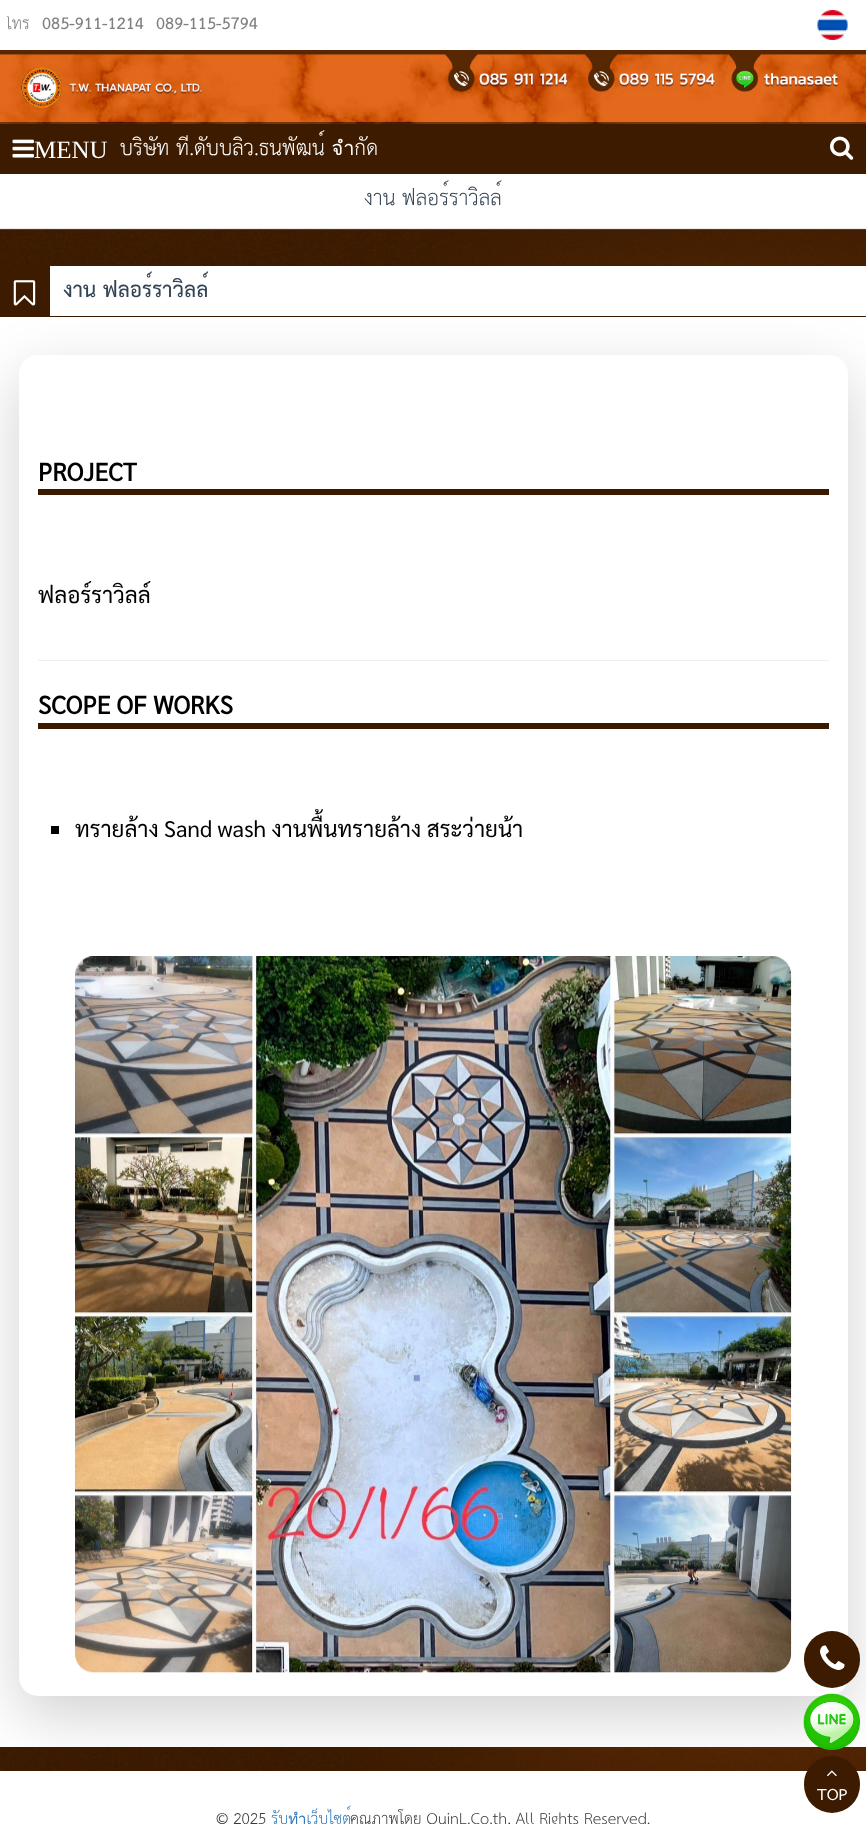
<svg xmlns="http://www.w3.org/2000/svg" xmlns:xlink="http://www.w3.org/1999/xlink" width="866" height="1824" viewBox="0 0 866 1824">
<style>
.cls-1{font:15.75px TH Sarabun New;fill:#7f7f7f}
.cls-2{font:bold 15.75px TH Sarabun New;fill:#7f7f7f}
.cls-3{font:25px Liberation Serif;fill:#ffffff}
.cls-4{font:20px TH Sarabun New;fill:#ffffff}
.cls-5{font:20px TH Sarabun New;fill:#334455}
.cls-6{font:bold 20px TH Sarabun New;fill:#334455}
.cls-7{font:bold 25px Sarabun;fill:#000000}
.cls-8{font:22.5px Sarabun;fill:#000000}
.cls-9{font:15px TH Sarabun New;fill:#3a3a3a}
.cls-10{font:15px TH Sarabun New;fill:#337ab7}
.cls-11{font:bold 15px TH Sarabun New;fill:#ffffff}
</style>
<defs>
<clipPath id="clip1"><rect x="0" y="16" width="641" height="19"/></clipPath>
</defs>
<rect width="100%" height="100%" fill="#ffffff"/>
<image xlink:href="image0.png" x="0" y="123" width="866" height="1648"/>
<image xlink:href="image1.png" x="817" y="10" width="31" height="30"/>
<image xlink:href="image2.png" x="0" y="50" width="866" height="74"/>
<rect fill="#3c1b00" x="0" y="124" width="866" height="50"/>
<image xlink:href="image3.png" x="12" y="139" width="22" height="19"/>
<image xlink:href="image4.png" x="830" y="136" width="24" height="24"/>
<image xlink:href="image5.png" x="0" y="174" width="866" height="56"/>
<rect fill="#ffffff" fill-opacity="0.75" x="0" y="228" width="866" height="1"/>
<rect fill="#ffffff" x="0" y="266" width="866" height="1481"/>
<rect fill="#3c1b00" x="0" y="266" width="50" height="50"/>
<image xlink:href="image6.png" x="13" y="280" width="23" height="26"/>
<rect fill="#3c1b00" x="0" y="316" width="866" height="1"/>
<rect fill="#000000" fill-opacity="0.18" filter="blur(30px)" x="19" y="375" width="829" height="1341" rx="19"/>
<rect fill="#ffffff" x="19" y="355" width="829" height="1341" rx="19"/>
<rect fill="#391900" x="38" y="489" width="791" height="6"/>
<rect fill="#eeeeee" x="38" y="660" width="791" height="1"/>
<rect fill="#391900" x="38" y="723" width="791" height="6"/>
<rect fill="#000000" x="51" y="826" width="8" height="8"/>
<image xlink:href="image7.png" x="75" y="956" width="717" height="717"/>
<rect fill="#3c1b00" x="804" y="1631" width="56" height="57" rx="28"/>
<image xlink:href="image8.png" x="820" y="1645" width="25" height="25"/>
<image xlink:href="image9.png" x="803" y="1693" width="57" height="57"/>
<rect fill="#3c1b00" x="804" y="1756" width="56" height="57" rx="28"/>
<image xlink:href="image10.png" x="827" y="1770" width="10" height="7"/>
<g clip-path="url(#clip1)">
<text class="cls-1" x="6" y="29">โทร</text>
</g>
<text class="cls-2" x="42" y="29">085-911-1214</text>
<text class="cls-2" x="156" y="29">089-115-5794</text>
<text class="cls-3" x="34" y="158">MENU</text>
<text class="cls-4" x="120" y="155">บริษัท ที.ดับบลิว.ธนพัฒน์ จำกัด</text>
<text class="cls-5" x="364" y="205">งาน ฟลอร์ราวิลล์</text>
<text class="cls-6" x="63" y="297">งาน ฟลอร์ราวิลล์</text>
<text class="cls-7" x="38" y="481">PROJECT</text>
<text class="cls-8" x="38" y="603">ฟลอร์ราวิลล์</text>
<text class="cls-7" x="38" y="714">SCOPE OF WORKS</text>
<text class="cls-8" x="75" y="837">ทรายล้าง Sand wash งานพื้นทรายล้าง สระว่ายน้า</text>
<text class="cls-9" x="216" y="1824">© 2025</text>
<text class="cls-10" x="271" y="1824">รับทำเว็บไซต์</text>
<text class="cls-9" x="350" y="1824">คุณภาพโดย QuinL.Co.th, All Rights Reserved.</text>
<text class="cls-11" x="817" y="1800">TOP</text>
</svg>
